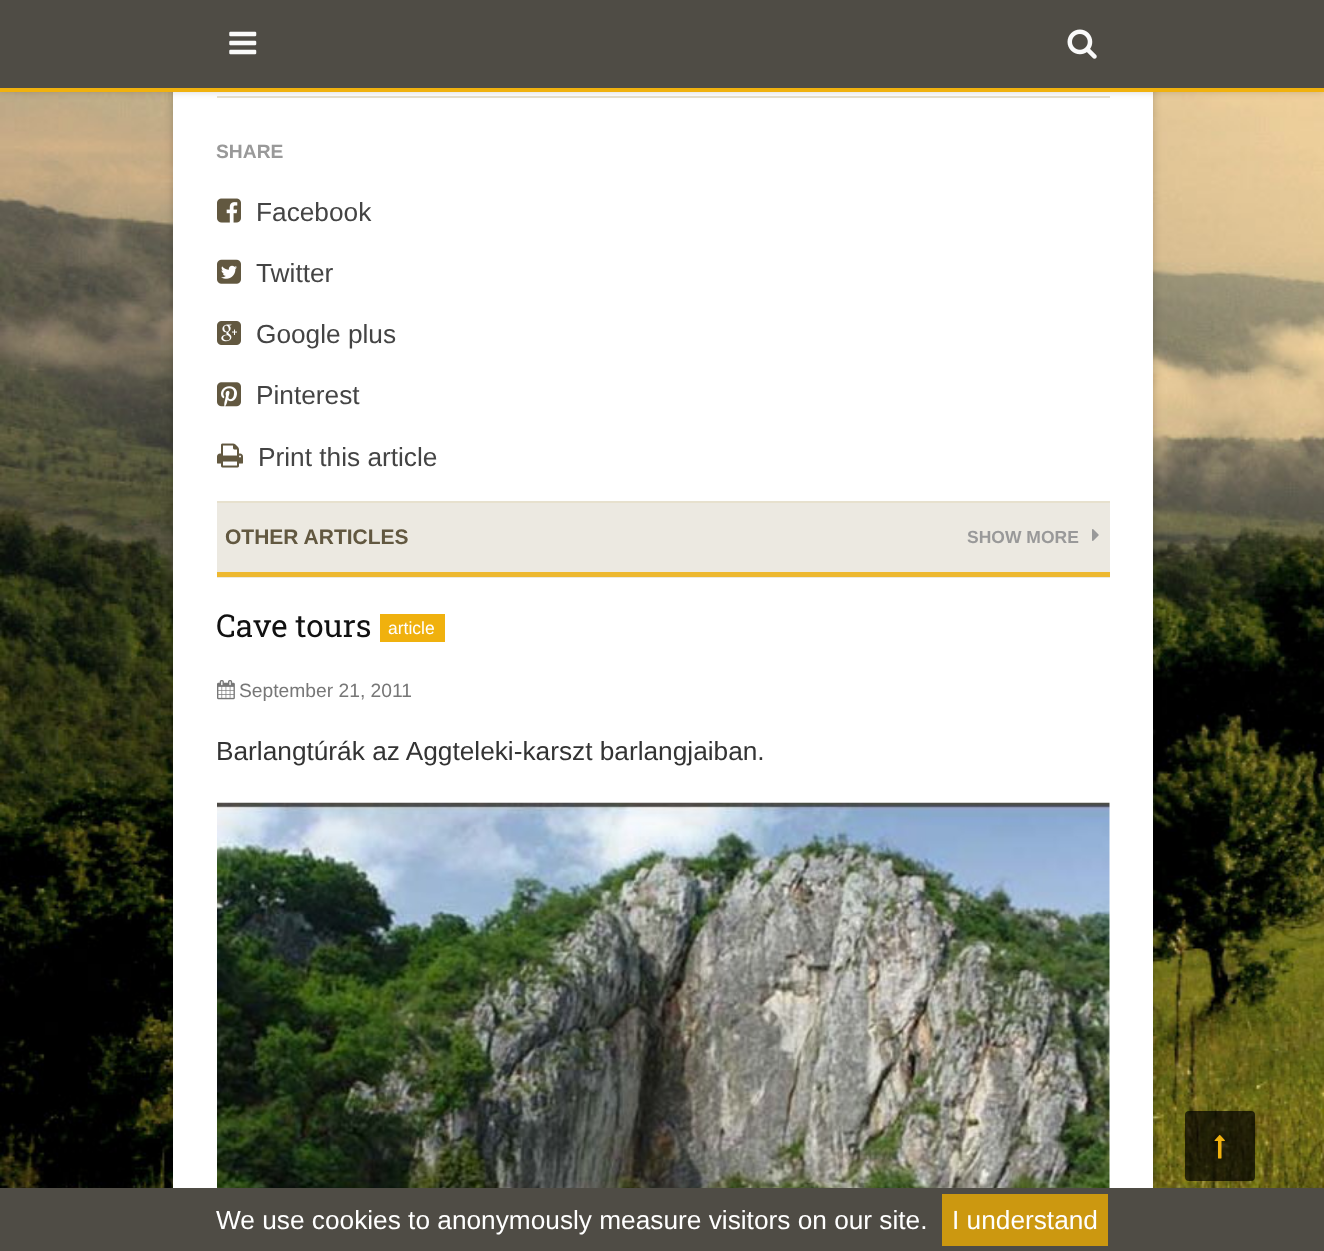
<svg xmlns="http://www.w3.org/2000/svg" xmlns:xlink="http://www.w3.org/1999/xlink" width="1324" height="1251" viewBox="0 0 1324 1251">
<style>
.cls-1{font:bold 19.25px Liberation Sans;fill:#999999}
.cls-2{font:26.25px Liberation Sans;fill:#444444}
.cls-3{font:bold 21px Liberation Sans;fill:#625840}
.cls-4{font:bold 17.5px Liberation Sans;fill:#999999}
.cls-5{font:31.5px Roboto Slab;fill:#111111}
.cls-6{font:17.5px Liberation Sans;fill:#ffffff}
.cls-7{font:19.25px Liberation Sans;fill:#777777}
.cls-8{font:26.25px Liberation Sans;fill:#333333}
.cls-9{font:26.25px Liberation Sans;fill:#ffffff}
</style>
<rect width="100%" height="100%" fill="#ffffff"/>
<image xlink:href="image0.png" x="0" y="92" width="1324" height="1096"/>
<rect fill="#000000" fill-opacity="0.2" filter="blur(4.5px)" x="173" y="-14" width="980" height="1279"/>
<rect fill="#ffffff" x="173" y="92" width="980" height="1096"/>
<rect fill="#e7e1ce" x="217" y="96" width="893" height="2"/>
<rect fill="#000000" fill-opacity="0.2" filter="blur(4.5px)" x="0" y="0" width="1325" height="91"/>
<rect fill="#4f4c45" x="0" y="0" width="1324" height="88"/>
<rect fill="#f0b10e" x="0" y="88" width="1324" height="4"/>
<image xlink:href="image1.png" x="229" y="31" width="28" height="24"/>
<image xlink:href="image2.png" x="1067" y="29" width="30" height="30"/>
<image xlink:href="image3.png" x="217" y="198" width="24" height="25"/>
<image xlink:href="image4.png" x="217" y="259" width="24" height="25"/>
<image xlink:href="image5.png" x="217" y="321" width="24" height="24"/>
<image xlink:href="image6.png" x="217" y="382" width="24" height="25"/>
<image xlink:href="image7.png" x="217" y="443" width="26" height="25"/>
<rect fill="#ece9e1" x="217" y="503" width="893" height="75"/>
<rect fill="#e7e1ce" x="217" y="501" width="893" height="2"/>
<rect fill="#edb830" x="217" y="572" width="893" height="5"/>
<image xlink:href="image8.png" x="1092" y="529" width="7" height="12"/>
<rect fill="#f0b10e" x="380" y="614" width="65" height="28"/>
<image xlink:href="image9.png" x="217" y="680" width="18" height="20"/>
<image xlink:href="image10.png" x="217" y="802" width="893" height="386"/>
<rect fill="#000000" fill-opacity="0.7" x="1185" y="1111" width="70" height="70" rx="4"/>
<image xlink:href="image11.png" x="1214" y="1134" width="11" height="25"/>
<rect fill="#4f4c45" x="0" y="1188" width="1324" height="63"/>
<rect fill="#cc9810" x="942" y="1194" width="166" height="52"/>
<text class="cls-1" x="216" y="158">SHARE</text>
<text class="cls-2" x="256" y="221">Facebook</text>
<text class="cls-2" x="256" y="282">Twitter</text>
<text class="cls-2" x="256" y="343">Google plus</text>
<text class="cls-2" x="256" y="404">Pinterest</text>
<text class="cls-2" x="258" y="466">Print this article</text>
<text class="cls-3" x="225" y="544">OTHER ARTICLES</text>
<text class="cls-4" x="967" y="543">SHOW MORE</text>
<text class="cls-5" x="216" y="637">Cave tours</text>
<text class="cls-6" x="388" y="634">article</text>
<text class="cls-7" x="239" y="697">September 21, 2011</text>
<text class="cls-8" x="216" y="760">Barlangtúrák az Aggteleki-karszt barlangjaiban.</text>
<text class="cls-9" x="216" y="1229">We use cookies to anonymously measure visitors on our site.</text>
<text class="cls-9" x="952" y="1229">I understand</text>
</svg>
